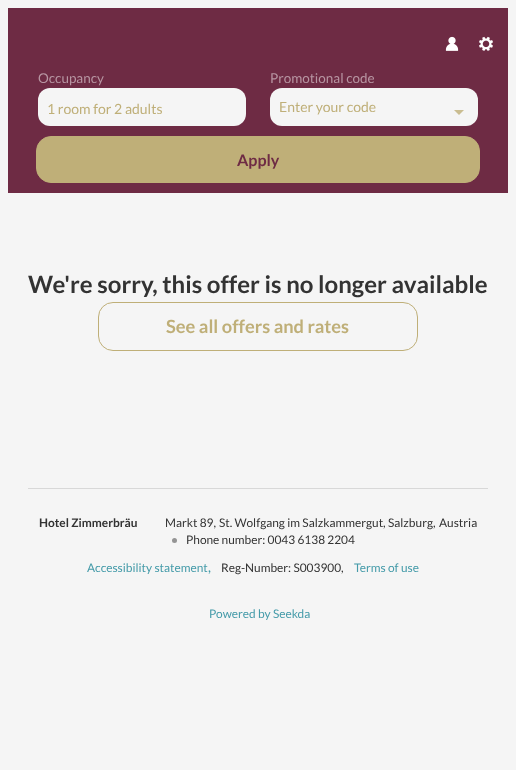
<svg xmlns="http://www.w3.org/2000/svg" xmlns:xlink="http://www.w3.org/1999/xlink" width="516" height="770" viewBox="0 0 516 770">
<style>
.cls-1{font:13.5px Lato;fill:#b795a2}
.cls-2{font:14px Lato;fill:#bfaf78}
.cls-3{font:bold 16px Lato;fill:#6e2b44}
.cls-4{font:bold 24px Lato;fill:#333333}
.cls-5{font:bold 18.25px Lato;fill:#bfaf78}
.cls-6{font:bold 11.9px Lato;fill:#333333}
.cls-7{font:11.9px Lato;fill:#333333}
.cls-8{font:11.9px Lato;fill:#459ba9}
.cls-9{font:14px Lato;fill:#459ba9}
</style>
<rect width="100%" height="100%" fill="#f5f5f5"/>
<rect fill="#6e2b44" x="8" y="8" width="500" height="185"/>
<image xlink:href="image0.png" x="445" y="36" width="14" height="15"/>
<image xlink:href="image1.png" x="479" y="36" width="14" height="15"/>
<rect fill="#f5f5f5" x="38" y="88" width="208" height="38" rx="12"/>
<rect fill="#f5f5f5" x="270" y="88" width="208" height="38" rx="12"/>
<path fill="#cabd91" d="M454 110H464L459 115Z"/>
<rect fill="#bfaf78" stroke="#bfaf78" x="36.5" y="136.5" width="443" height="46" rx="14.5"/>
<rect fill="none" stroke="#bfaf78" x="98.5" y="302.5" width="319" height="48" rx="14.5"/>
<rect fill="#d8d8d8" x="28" y="488" width="460" height="1"/>
<circle fill="#949494" cx="174.5" cy="540.5" r="2.5"/>
<text class="cls-1" x="38" y="83">Occupancy</text>
<text class="cls-2" x="47" y="114">1 room for 2 adults</text>
<text class="cls-1" x="270" y="83">Promotional code</text>
<text class="cls-2" x="279" y="112">Enter your code</text>
<text class="cls-3" x="237" y="166">Apply</text>
<text class="cls-4" x="28" y="293">We're sorry, this offer is no longer available</text>
<text class="cls-5" x="166" y="333">See all offers and rates</text>
<text class="cls-6" x="39" y="527">Hotel Zimmerbräu</text>
<text class="cls-7" x="165" y="527">Markt 89,</text>
<text class="cls-7" x="219" y="527">St. Wolfgang im Salzkammergut,</text>
<text class="cls-7" x="388" y="527">Salzburg,</text>
<text class="cls-7" x="439" y="527">Austria</text>
<text class="cls-7" x="186" y="544">Phone number: 0043 6138 2204</text>
<text class="cls-8" x="87" y="572">Accessibility statement</text>
<text class="cls-9" x="208" y="572">,</text>
<text class="cls-7" x="221" y="572">Reg-Number: S003900,</text>
<text class="cls-8" x="354" y="572">Terms of use</text>
<text class="cls-8" x="209" y="618">Powered by Seekda</text>
</svg>
